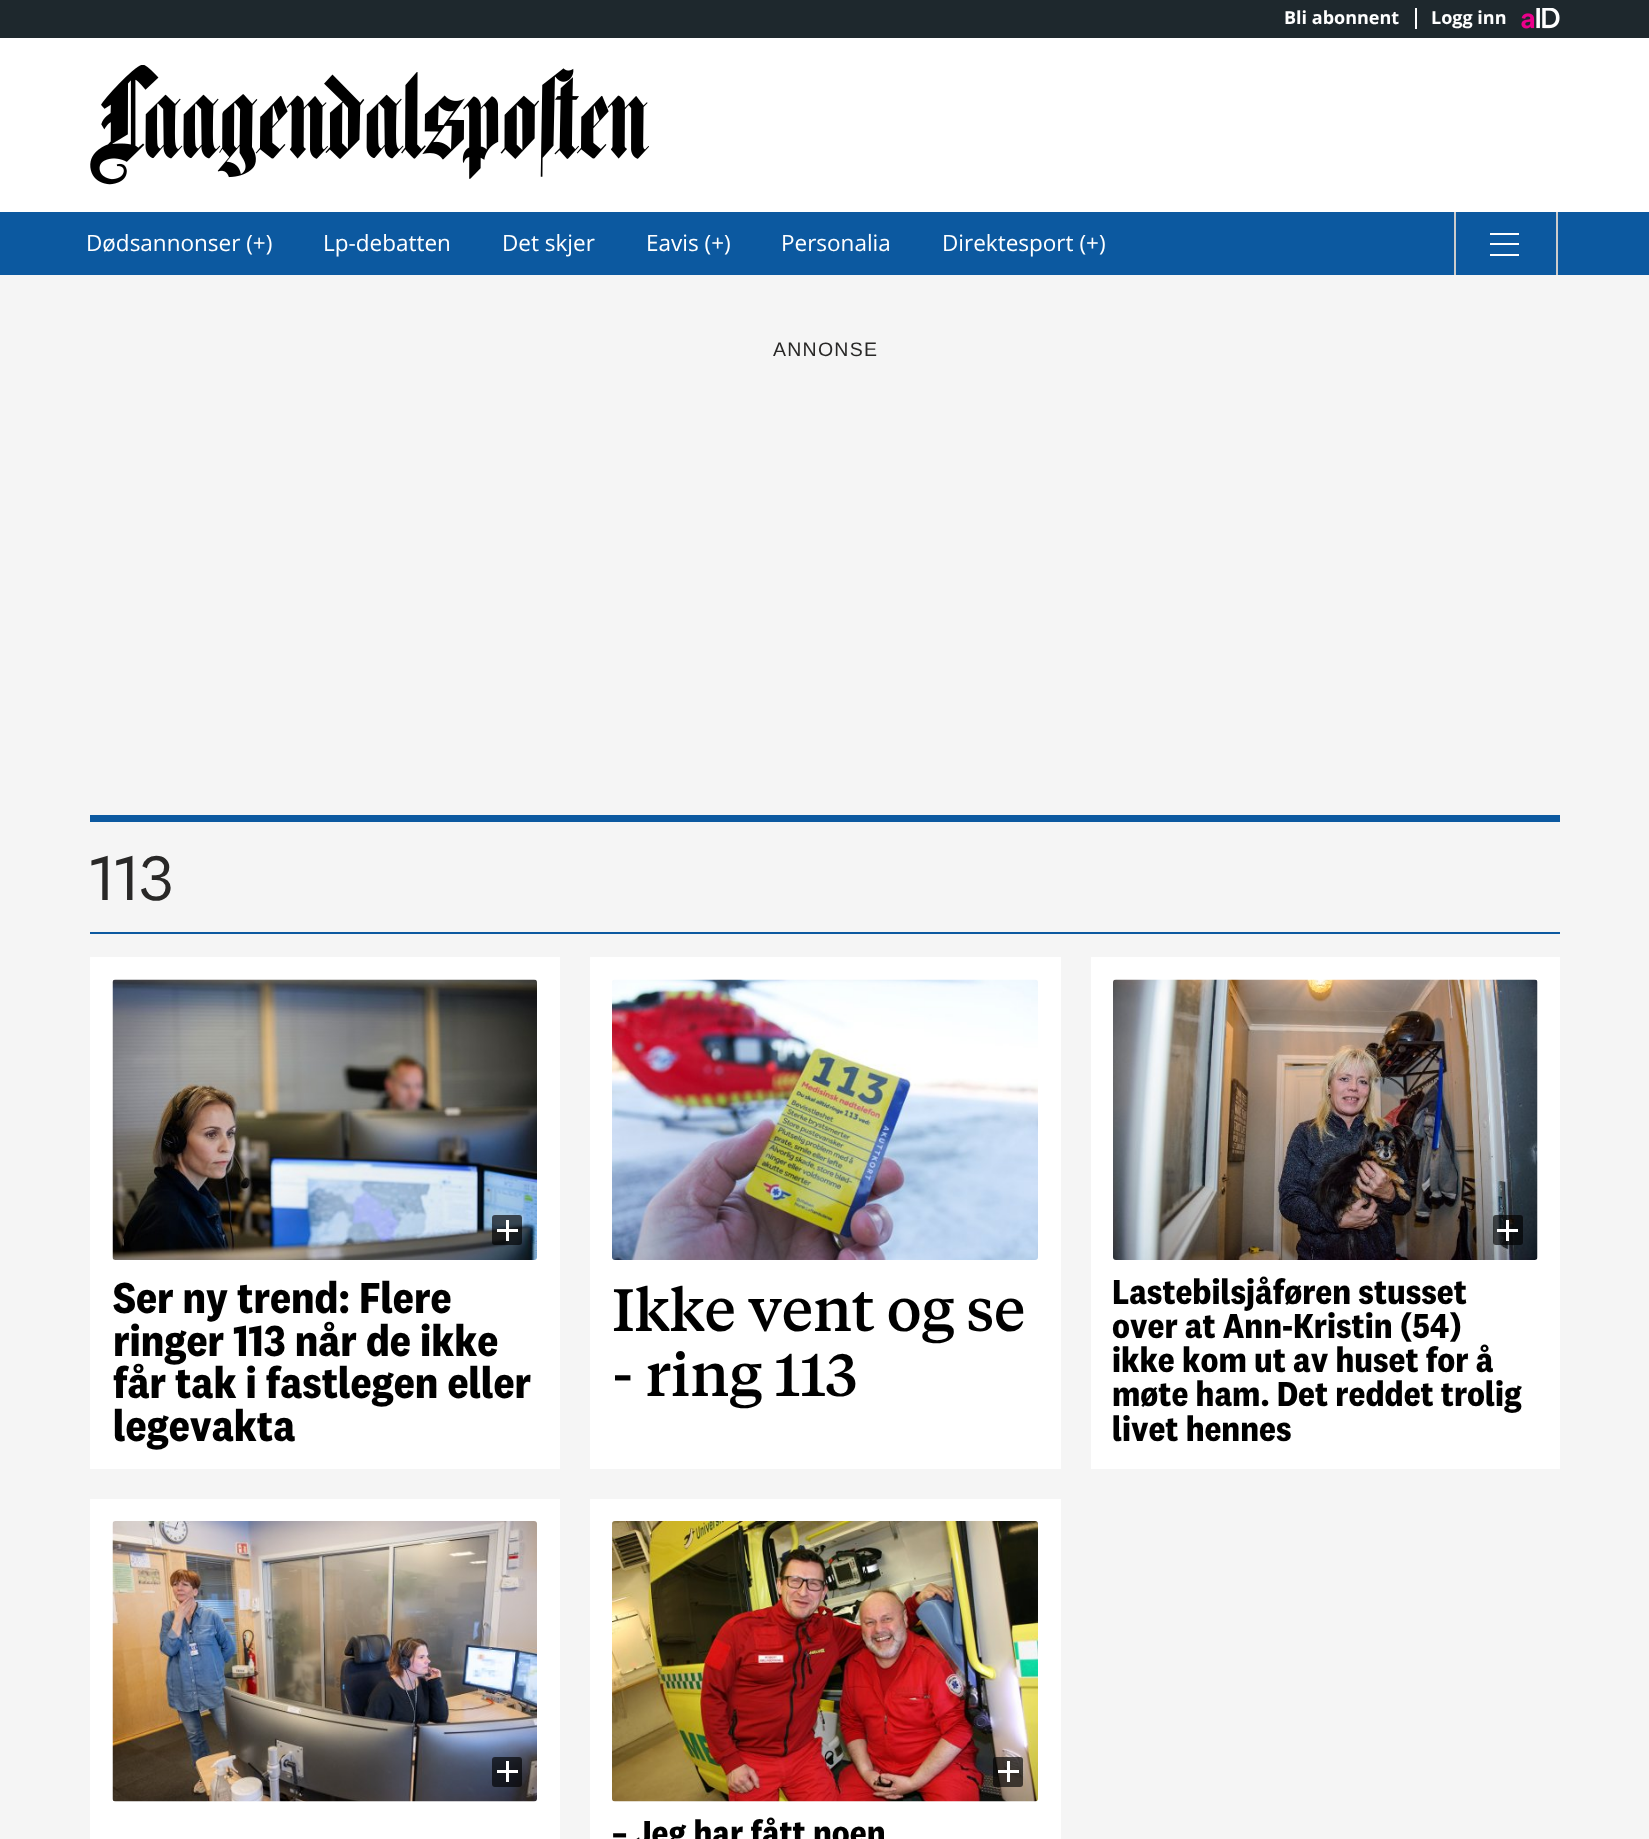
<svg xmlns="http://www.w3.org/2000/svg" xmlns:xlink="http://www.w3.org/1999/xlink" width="1649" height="1839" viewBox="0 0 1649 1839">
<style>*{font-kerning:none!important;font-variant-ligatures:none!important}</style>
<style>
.cls-1{font:bold 18px Open Sans;fill:#ffffff}
.cls-2{font:22.5px Open Sans;fill:#ffffff}
.cls-3{font:19.5px Liberation Sans;letter-spacing:1.25px;fill:#292827}
.cls-4{font:65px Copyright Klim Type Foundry;fill:#292827}
.cls-5{font:bold 45px Copyright Klim Type Foundry;fill:#000000}
.cls-6{font:500 59.5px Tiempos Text;letter-spacing:-0.5px;fill:#000000}
.cls-7{font:bold 36px Copyright Klim Type Foundry;fill:#000000}
</style>
<rect width="100%" height="100%" fill="#f5f5f5"/>
<rect fill="#1e282d" x="0" y="0" width="1649" height="38"/>
<rect fill="#ffffff" x="1415" y="8" width="2" height="21"/>
<image xlink:href="image0.png" x="1521" y="8" width="39" height="21"/>
<rect fill="#ffffff" x="0" y="38" width="1649" height="174"/>
<image xlink:href="image1.png" x="90" y="65" width="559" height="120"/>
<rect fill="#0c59a0" x="0" y="212" width="1649" height="63"/>
<rect fill="#cccccc" x="1556" y="212" width="2" height="63"/>
<rect fill="#cccccc" x="1454" y="212" width="2" height="63"/>
<rect fill="#ffffff" x="1490" y="233" width="29" height="2"/>
<rect fill="#ffffff" x="1490" y="243" width="29" height="2"/>
<rect fill="#ffffff" x="1490" y="254" width="29" height="2"/>
<rect fill="#0c59a0" x="90" y="815" width="1470" height="7"/>
<rect fill="#0c59a0" x="90" y="932" width="1470" height="2"/>
<rect fill="#ffffff" x="90" y="957" width="470" height="512"/>
<image xlink:href="image2.png" x="112" y="979" width="425" height="281"/>
<rect fill="#000000" fill-opacity="0.65" x="492" y="1215" width="30" height="30" rx="3"/>
<rect fill="#ffffff" x="506" y="1220" width="3" height="21"/>
<rect fill="#ffffff" x="497" y="1229" width="21" height="3"/>
<rect fill="#ffffff" x="590" y="957" width="471" height="512"/>
<image xlink:href="image3.png" x="612" y="979" width="426" height="281"/>
<rect fill="#ffffff" x="1091" y="957" width="469" height="512"/>
<image xlink:href="image4.png" x="1113" y="979" width="425" height="281"/>
<rect fill="#000000" fill-opacity="0.65" x="1493" y="1215" width="30" height="30" rx="3"/>
<rect fill="#ffffff" x="1506" y="1220" width="3" height="21"/>
<rect fill="#ffffff" x="1497" y="1229" width="21" height="3"/>
<rect fill="#ffffff" x="90" y="1499" width="470" height="340"/>
<image xlink:href="image5.png" x="112" y="1521" width="425" height="281"/>
<rect fill="#000000" fill-opacity="0.65" x="492" y="1757" width="30" height="30" rx="3"/>
<rect fill="#ffffff" x="506" y="1761" width="3" height="21"/>
<rect fill="#ffffff" x="497" y="1770" width="21" height="3"/>
<rect fill="#ffffff" x="590" y="1499" width="471" height="340"/>
<image xlink:href="image6.png" x="612" y="1521" width="426" height="281"/>
<rect fill="#000000" fill-opacity="0.65" x="993" y="1757" width="30" height="30" rx="3"/>
<rect fill="#ffffff" x="1007" y="1761" width="3" height="21"/>
<rect fill="#ffffff" x="998" y="1770" width="21" height="3"/>
<text class="cls-1" x="1284" y="24">Bli abonnent</text>
<text class="cls-1" x="1431" y="24">Logg inn</text>
<text class="cls-2" x="86" y="251">Dødsannonser (+)</text>
<text class="cls-2" x="323" y="251">Lp-debatten</text>
<text class="cls-2" x="502" y="251">Det skjer</text>
<text class="cls-2" x="646" y="251">Eavis (+)</text>
<text class="cls-2" x="781" y="251">Personalia</text>
<text class="cls-2" x="942" y="251">Direktesport (+)</text>
<text class="cls-3" x="773" y="356">ANNONSE</text>
<text class="cls-4" x="90" y="900">113</text>
<text class="cls-5"><tspan x="113" y="1313">Ser ny trend: Flere</tspan><tspan x="113" y="1356">ringer 113 når de ikke</tspan><tspan x="113" y="1398">får tak i fastlegen eller</tspan><tspan x="113" y="1441">legevakta</tspan></text>
<text class="cls-6"><tspan x="612" y="1331">Ikke vent og se</tspan><tspan x="612" y="1396">- ring 113</tspan></text>
<text class="cls-7"><tspan x="1112" y="1304">Lastebilsjåføren stusset</tspan><tspan x="1112" y="1338">over at Ann-Kristin (54)</tspan><tspan x="1112" y="1372">ikke kom ut av huset for å</tspan><tspan x="1112" y="1406">møte ham. Det reddet trolig</tspan><tspan x="1112" y="1441">livet hennes</tspan></text>
<text class="cls-7" x="612" y="1845">– Jeg har fått noen</text>
</svg>
